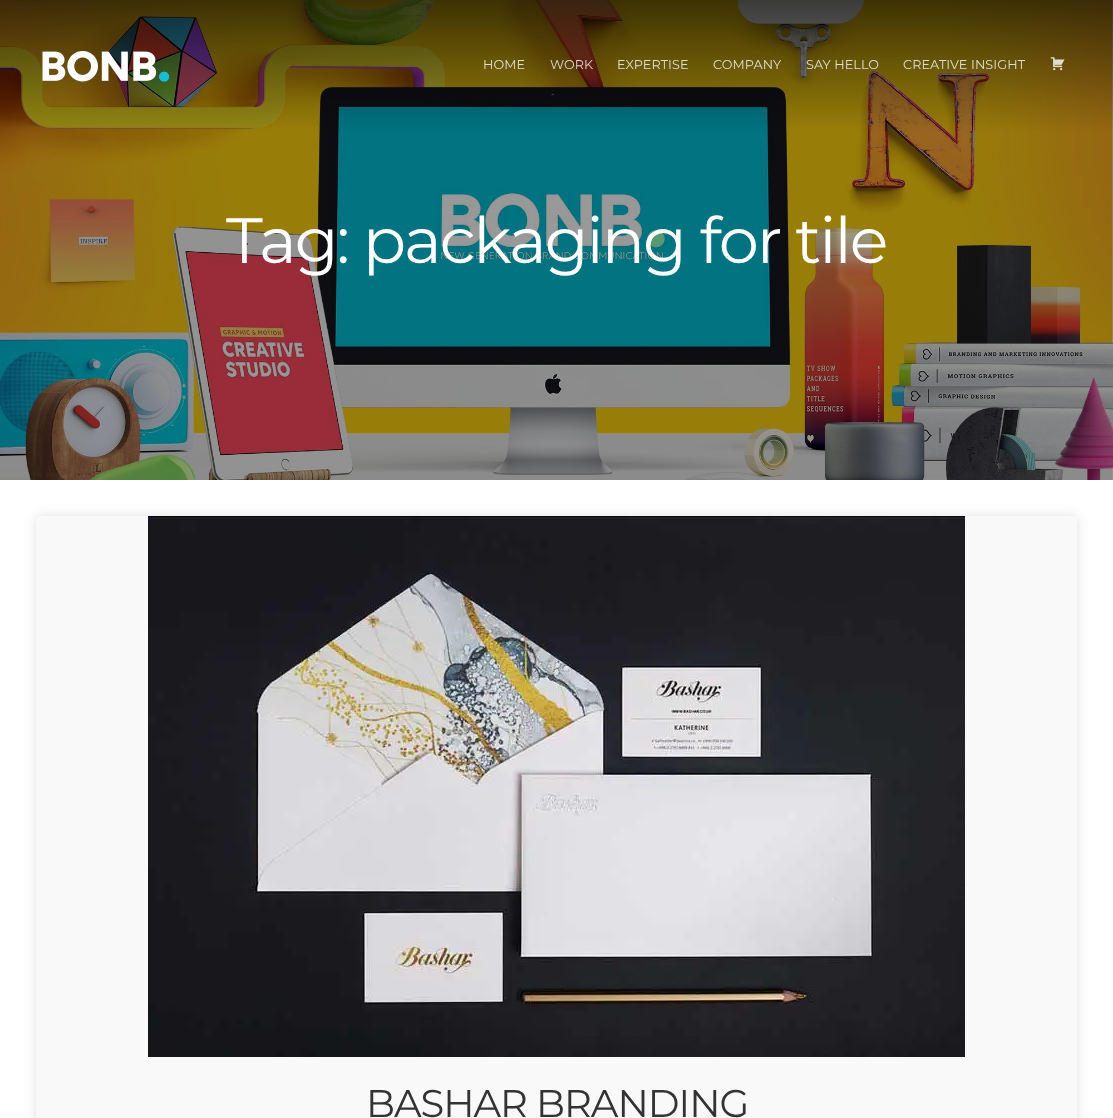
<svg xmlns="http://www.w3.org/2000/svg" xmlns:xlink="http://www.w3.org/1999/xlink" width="1113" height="1118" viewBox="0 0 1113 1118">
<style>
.cls-1{font:12.75px Montserrat;letter-spacing:0.1px;fill:#e1ddcd}
.cls-2{font:12.75px Montserrat;letter-spacing:0.1px;fill:#ded6ce}
.cls-3{font:64px Montserrat;letter-spacing:-2px;fill:#ffffff}
.cls-4{font:38.5px Montserrat;letter-spacing:-1px;fill:#333333}
</style>
<rect width="100%" height="100%" fill="#ffffff"/>
<image xlink:href="image2.png" x="0" y="0" width="1113" height="480"/>
<image xlink:href="image0.png" x="42" y="51" width="127" height="31"/>
<image xlink:href="image1.png" x="1050" y="57" width="15" height="14"/>
<rect fill="#000000" fill-opacity="0.12" filter="blur(6px)" x="36" y="516" width="1041" height="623" rx="3"/>
<rect fill="#f9f9f9" x="36" y="516" width="1041" height="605" rx="3"/>
<image xlink:href="image3.png" x="148" y="516" width="817" height="541"/>
<text class="cls-1" x="483" y="69">HOME</text>
<text class="cls-2" x="550" y="69">WORK</text>
<text class="cls-1" x="617" y="69">EXPERTISE</text>
<text class="cls-1" x="713" y="69">COMPANY</text>
<text class="cls-1" x="806" y="69">SAY HELLO</text>
<text class="cls-1" x="903" y="69">CREATIVE INSIGHT</text>
<text class="cls-3" x="226" y="263">Tag: packaging for tile</text>
<text class="cls-4" x="366" y="1117">BASHAR BRANDING</text>
</svg>
